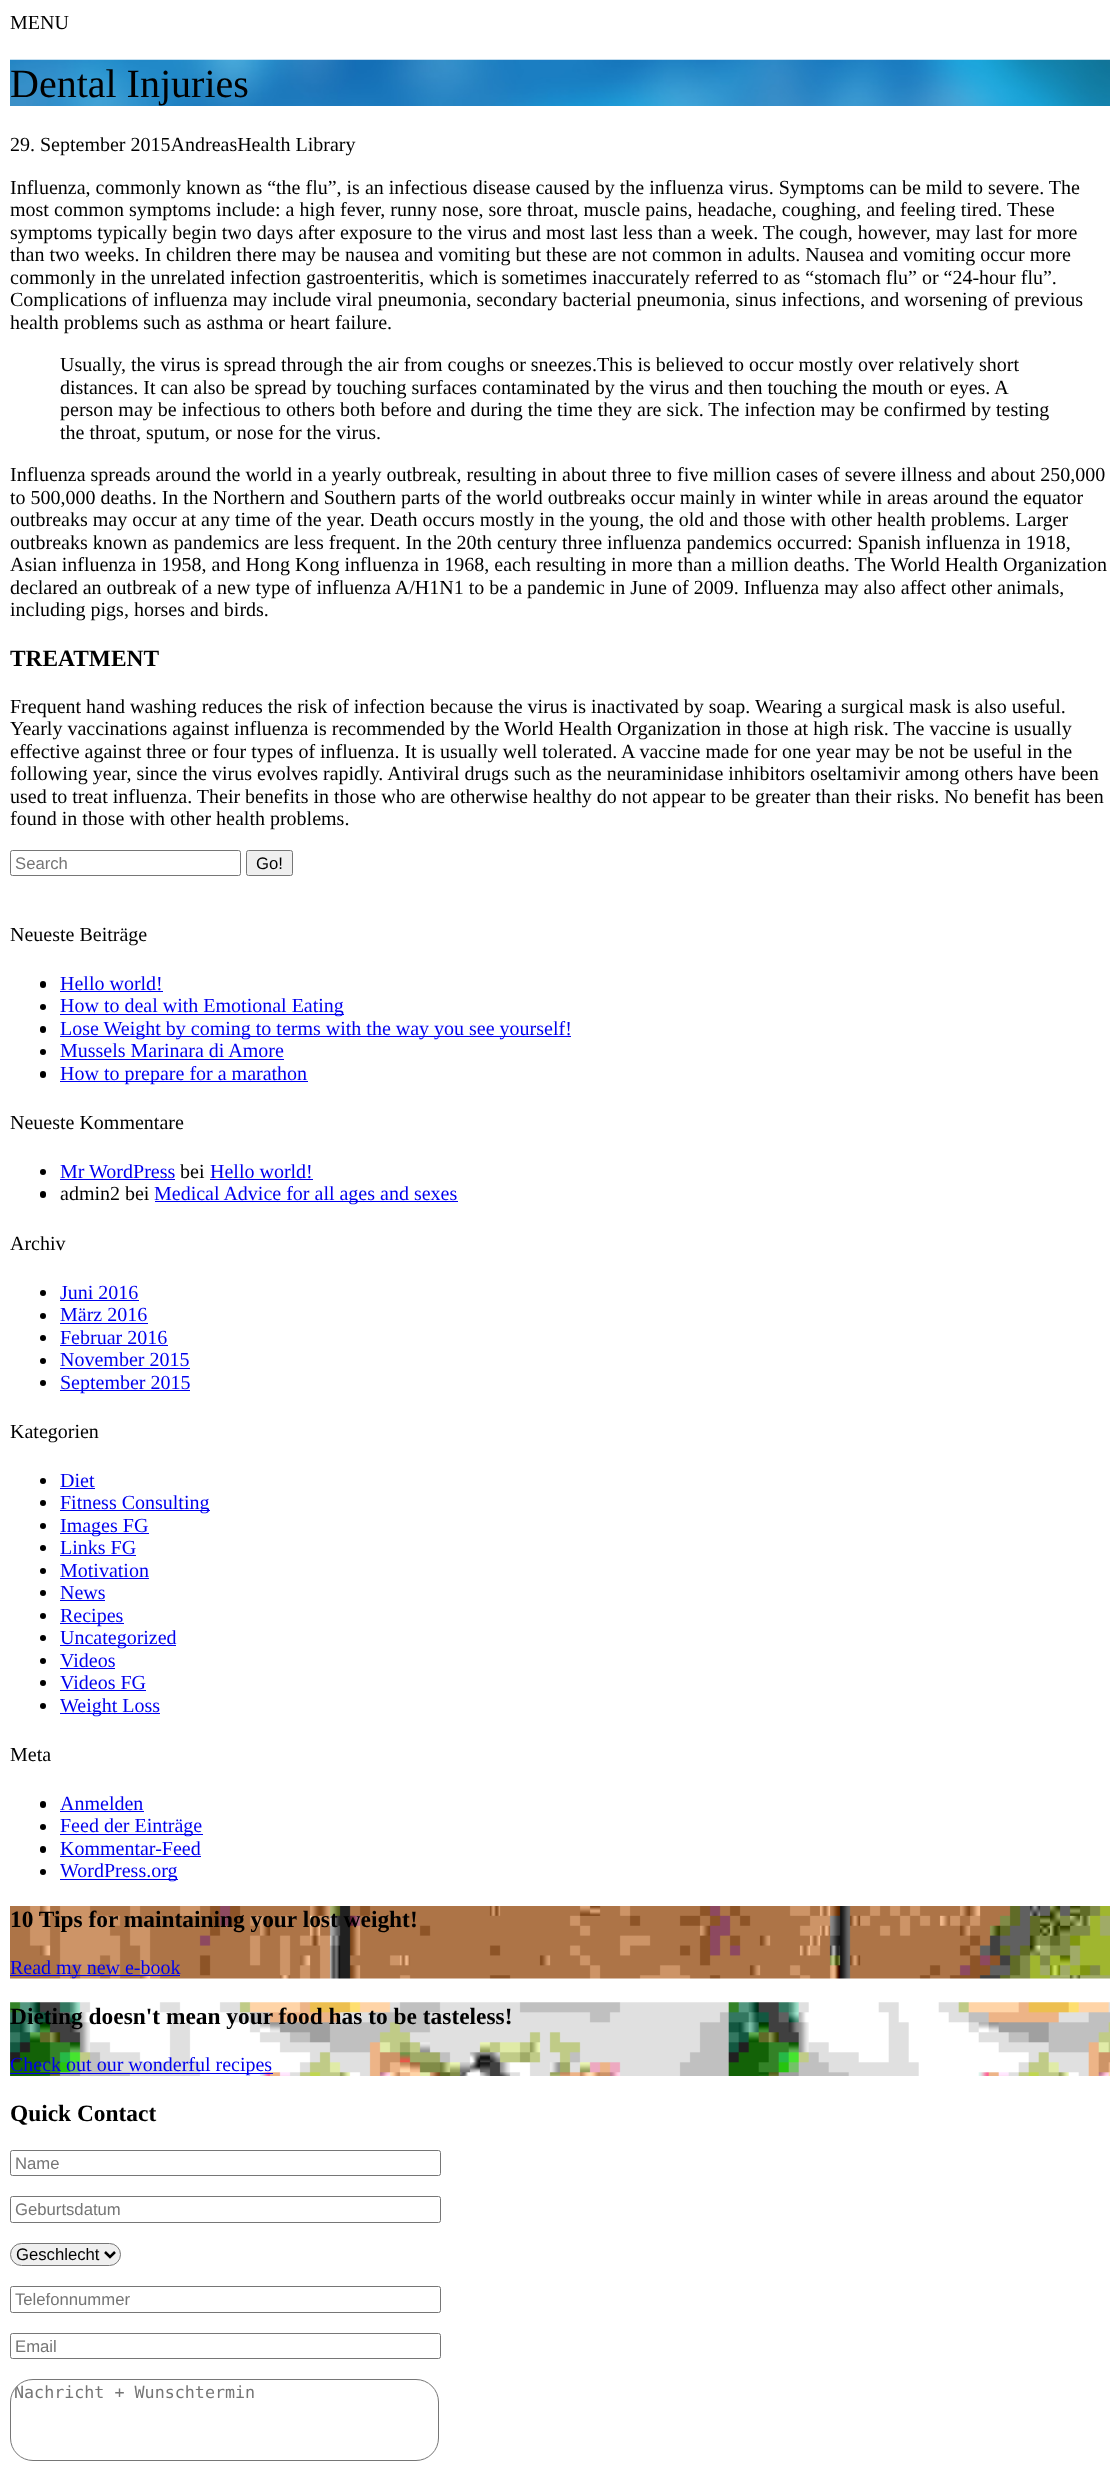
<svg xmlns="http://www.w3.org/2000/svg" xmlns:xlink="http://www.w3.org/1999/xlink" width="1119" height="2476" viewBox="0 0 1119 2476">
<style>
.cls-1{font:20px Liberation Serif;fill:#000000}
.cls-2{font:40px Liberation Serif;fill:#000000}
.cls-3{font:bold 23.4px Liberation Serif;fill:#000000}
.cls-4{font:16.7px Liberation Sans;fill:#757575}
.cls-5{font:16.7px Liberation Sans;fill:#000000}
.cls-6{font:20px Liberation Serif;fill:#0000ee}
.cls-7{font:16.7px DejaVu Sans Mono;fill:#757575}
</style>
<defs>
<clipPath id="clip1"><rect x="11" y="2380" width="427" height="80" rx="21"/></clipPath>
</defs>
<rect width="100%" height="100%" fill="#ffffff"/>
<image xlink:href="image0.png" x="10" y="59" width="1100" height="47"/>
<rect fill="none" stroke="#767676" x="10.5" y="850.5" width="230" height="25" rx="2"/>
<rect fill="#efefef" stroke="#767676" x="246.5" y="850.5" width="46" height="25" rx="2"/>
<rect fill="#000000" x="40" y="981" width="6" height="7" rx="3"/>
<rect fill="#0000ee" x="60" y="991" width="103" height="1"/>
<circle fill="#000000" cx="43" cy="1007" r="3"/>
<rect fill="#0000ee" x="60" y="1014" width="284" height="1"/>
<rect fill="#000000" x="40" y="1026" width="6" height="7" rx="3"/>
<rect fill="#0000ee" x="60" y="1036" width="511" height="1"/>
<circle fill="#000000" cx="43" cy="1052" r="3"/>
<rect fill="#0000ee" x="60" y="1059" width="224" height="1"/>
<rect fill="#000000" x="40" y="1071" width="6" height="7" rx="3"/>
<rect fill="#0000ee" x="60" y="1081" width="248" height="1"/>
<circle fill="#000000" cx="43" cy="1172" r="3"/>
<rect fill="#0000ee" x="60" y="1179" width="115" height="1"/>
<rect fill="#0000ee" x="210" y="1179" width="103" height="1"/>
<rect fill="#000000" x="40" y="1191" width="6" height="7" rx="3"/>
<rect fill="#0000ee" x="155" y="1201" width="303" height="1"/>
<circle fill="#000000" cx="43" cy="1293" r="3"/>
<rect fill="#0000ee" x="60" y="1300" width="79" height="1"/>
<circle fill="#000000" cx="43" cy="1316" r="3"/>
<rect fill="#0000ee" x="60" y="1323" width="88" height="1"/>
<circle fill="#000000" cx="43" cy="1338" r="3"/>
<rect fill="#0000ee" x="60" y="1345" width="108" height="1"/>
<circle fill="#000000" cx="43" cy="1361" r="3"/>
<rect fill="#0000ee" x="60" y="1368" width="130" height="1"/>
<circle fill="#000000" cx="43" cy="1383" r="3"/>
<rect fill="#0000ee" x="60" y="1390" width="130" height="1"/>
<circle fill="#000000" cx="43" cy="1481" r="3"/>
<rect fill="#0000ee" x="60" y="1488" width="35" height="1"/>
<circle fill="#000000" cx="43" cy="1503" r="3"/>
<rect fill="#0000ee" x="60" y="1510" width="150" height="1"/>
<circle fill="#000000" cx="43" cy="1526" r="3"/>
<rect fill="#0000ee" x="60" y="1533" width="89" height="1"/>
<circle fill="#000000" cx="43" cy="1548" r="3"/>
<rect fill="#0000ee" x="60" y="1555" width="76" height="1"/>
<circle fill="#000000" cx="43" cy="1571" r="3"/>
<rect fill="#0000ee" x="60" y="1578" width="89" height="1"/>
<circle fill="#000000" cx="43" cy="1593" r="3"/>
<rect fill="#0000ee" x="60" y="1600" width="45" height="1"/>
<circle fill="#000000" cx="43" cy="1616" r="3"/>
<rect fill="#0000ee" x="60" y="1623" width="64" height="1"/>
<circle fill="#000000" cx="43" cy="1638" r="3"/>
<rect fill="#0000ee" x="60" y="1645" width="116" height="1"/>
<circle fill="#000000" cx="43" cy="1661" r="3"/>
<rect fill="#0000ee" x="60" y="1668" width="55" height="1"/>
<circle fill="#000000" cx="43" cy="1683" r="3"/>
<rect fill="#0000ee" x="60" y="1690" width="86" height="1"/>
<circle fill="#000000" cx="43" cy="1706" r="3"/>
<rect fill="#0000ee" x="60" y="1713" width="100" height="1"/>
<rect fill="#000000" x="40" y="1801" width="6" height="7" rx="3"/>
<rect fill="#0000ee" x="60" y="1811" width="84" height="1"/>
<circle fill="#000000" cx="43" cy="1827" r="3"/>
<rect fill="#0000ee" x="60" y="1834" width="143" height="1"/>
<rect fill="#000000" x="40" y="1846" width="6" height="7" rx="3"/>
<rect fill="#0000ee" x="60" y="1856" width="141" height="1"/>
<circle fill="#000000" cx="43" cy="1872" r="3"/>
<rect fill="#0000ee" x="60" y="1879" width="118" height="1"/>
<image xlink:href="image1.png" x="10" y="1906" width="1100" height="73"/>
<rect fill="#0000ee" x="10" y="1975" width="170" height="1"/>
<image xlink:href="image2.png" x="10" y="2002" width="1100" height="74"/>
<rect fill="#0000ee" x="10" y="2073" width="263" height="1"/>
<rect fill="none" stroke="#767676" x="10.5" y="2150.5" width="430" height="25" rx="2"/>
<rect fill="none" stroke="#767676" x="10.5" y="2196.5" width="430" height="26" rx="2"/>
<rect fill="#efefef" stroke="#767676" x="10.5" y="2243.5" width="110" height="22" rx="11"/>
<path fill="none" stroke="#000000" stroke-width="2.5" d="M105 2252L110 2257L115 2252"/>
<rect fill="none" stroke="#767676" x="10.5" y="2286.5" width="430" height="26" rx="2"/>
<rect fill="none" stroke="#767676" x="10.5" y="2333.5" width="430" height="25" rx="2"/>
<rect fill="none" stroke="#767676" x="10.5" y="2379.5" width="428" height="81" rx="22.5"/>
<text class="cls-1" x="10" y="29">MENU</text>
<text class="cls-2" x="10" y="97">Dental Injuries</text>
<text class="cls-1" x="10" y="151">29. September 2015AndreasHealth Library</text>
<text class="cls-1"><tspan x="10" y="194">Influenza, commonly known as “the flu”, is an infectious disease caused by the influenza virus. Symptoms can be mild to severe. The</tspan><tspan x="10" y="216">most common symptoms include: a high fever, runny nose, sore throat, muscle pains, headache, coughing, and feeling tired. These</tspan><tspan x="10" y="239">symptoms typically begin two days after exposure to the virus and most last less than a week. The cough, however, may last for more</tspan><tspan x="10" y="261">than two weeks. In children there may be nausea and vomiting but these are not common in adults. Nausea and vomiting occur more</tspan><tspan x="10" y="284">commonly in the unrelated infection gastroenteritis, which is sometimes inaccurately referred to as “stomach flu” or “24-hour flu”.</tspan><tspan x="10" y="306">Complications of influenza may include viral pneumonia, secondary bacterial pneumonia, sinus infections, and worsening of previous</tspan><tspan x="10" y="329">health problems such as asthma or heart failure.</tspan></text>
<text class="cls-1"><tspan x="60" y="371">Usually, the virus is spread through the air from coughs or sneezes.This is believed to occur mostly over relatively short</tspan><tspan x="60" y="394">distances. It can also be spread by touching surfaces contaminated by the virus and then touching the mouth or eyes. A</tspan><tspan x="60" y="416">person may be infectious to others both before and during the time they are sick. The infection may be confirmed by testing</tspan><tspan x="60" y="439">the throat, sputum, or nose for the virus.</tspan></text>
<text class="cls-1"><tspan x="10" y="481">Influenza spreads around the world in a yearly outbreak, resulting in about three to five million cases of severe illness and about 250,000</tspan><tspan x="10" y="504">to 500,000 deaths. In the Northern and Southern parts of the world outbreaks occur mainly in winter while in areas around the equator</tspan><tspan x="10" y="526">outbreaks may occur at any time of the year. Death occurs mostly in the young, the old and those with other health problems. Larger</tspan><tspan x="10" y="549">outbreaks known as pandemics are less frequent. In the 20th century three influenza pandemics occurred: Spanish influenza in 1918,</tspan><tspan x="10" y="571">Asian influenza in 1958, and Hong Kong influenza in 1968, each resulting in more than a million deaths. The World Health Organization</tspan><tspan x="10" y="594">declared an outbreak of a new type of influenza A/H1N1 to be a pandemic in June of 2009. Influenza may also affect other animals,</tspan><tspan x="10" y="616">including pigs, horses and birds.</tspan></text>
<text class="cls-3" x="10" y="666">TREATMENT</text>
<text class="cls-1"><tspan x="10" y="713">Frequent hand washing reduces the risk of infection because the virus is inactivated by soap. Wearing a surgical mask is also useful.</tspan><tspan x="10" y="735">Yearly vaccinations against influenza is recommended by the World Health Organization in those at high risk. The vaccine is usually</tspan><tspan x="10" y="758">effective against three or four types of influenza. It is usually well tolerated. A vaccine made for one year may be not be useful in the</tspan><tspan x="10" y="780">following year, since the virus evolves rapidly. Antiviral drugs such as the neuraminidase inhibitors oseltamivir among others have been</tspan><tspan x="10" y="803">used to treat influenza. Their benefits in those who are otherwise healthy do not appear to be greater than their risks. No benefit has been</tspan><tspan x="10" y="825">found in those with other health problems.</tspan></text>
<text class="cls-4" x="15" y="869">Search</text>
<text class="cls-5" x="256" y="869">Go!</text>
<text class="cls-1" x="10" y="941">Neueste Beiträge</text>
<text class="cls-6"><tspan x="60" y="990">Hello world!</tspan><tspan x="60" y="1012">How to deal with Emotional Eating</tspan><tspan x="60" y="1035">Lose Weight by coming to terms with the way you see yourself!</tspan><tspan x="60" y="1057">Mussels Marinara di Amore</tspan><tspan x="60" y="1080">How to prepare for a marathon</tspan></text>
<text class="cls-1" x="10" y="1129">Neueste Kommentare</text>
<text class="cls-6" x="60" y="1178">Mr WordPress</text>
<text class="cls-1" x="180" y="1178">bei</text>
<text class="cls-6" x="210" y="1178">Hello world!</text>
<text class="cls-1" x="60" y="1200">admin2 bei</text>
<text class="cls-6" x="154" y="1200">Medical Advice for all ages and sexes</text>
<text class="cls-1" x="10" y="1250">Archiv</text>
<text class="cls-6"><tspan x="60" y="1299">Juni 2016</tspan><tspan x="60" y="1321">März 2016</tspan><tspan x="60" y="1344">Februar 2016</tspan><tspan x="60" y="1366">November 2015</tspan><tspan x="60" y="1389">September 2015</tspan></text>
<text class="cls-1" x="10" y="1438">Kategorien</text>
<text class="cls-6"><tspan x="60" y="1487">Diet</tspan><tspan x="60" y="1509">Fitness Consulting</tspan><tspan x="60" y="1532">Images FG</tspan><tspan x="60" y="1554">Links FG</tspan><tspan x="60" y="1577">Motivation</tspan><tspan x="60" y="1599">News</tspan><tspan x="60" y="1622">Recipes</tspan><tspan x="60" y="1644">Uncategorized</tspan><tspan x="60" y="1667">Videos</tspan><tspan x="60" y="1689">Videos FG</tspan><tspan x="60" y="1712">Weight Loss</tspan></text>
<text class="cls-1" x="10" y="1761">Meta</text>
<text class="cls-6"><tspan x="60" y="1810">Anmelden</tspan><tspan x="60" y="1832">Feed der Einträge</tspan><tspan x="60" y="1855">Kommentar-Feed</tspan><tspan x="60" y="1877">WordPress.org</tspan></text>
<text class="cls-3" x="10" y="1927">10 Tips for maintaining your lost weight!</text>
<text class="cls-6" x="10" y="1974">Read my new e-book</text>
<text class="cls-3" x="10" y="2024">Dieting doesn't mean your food has to be tasteless!</text>
<text class="cls-6" x="10" y="2071">Check out our wonderful recipes</text>
<text class="cls-3" x="10" y="2121">Quick Contact</text>
<text class="cls-4" x="15" y="2169">Name</text>
<text class="cls-4" x="15" y="2215">Geburtsdatum</text>
<text class="cls-5" x="16" y="2260">Geschlecht</text>
<text class="cls-4" x="15" y="2305">Telefonnummer</text>
<text class="cls-4" x="15" y="2352">Email</text>
<g clip-path="url(#clip1)">
<text class="cls-7" x="14" y="2398">Nachricht + Wunschtermin</text>
</g>
</svg>
